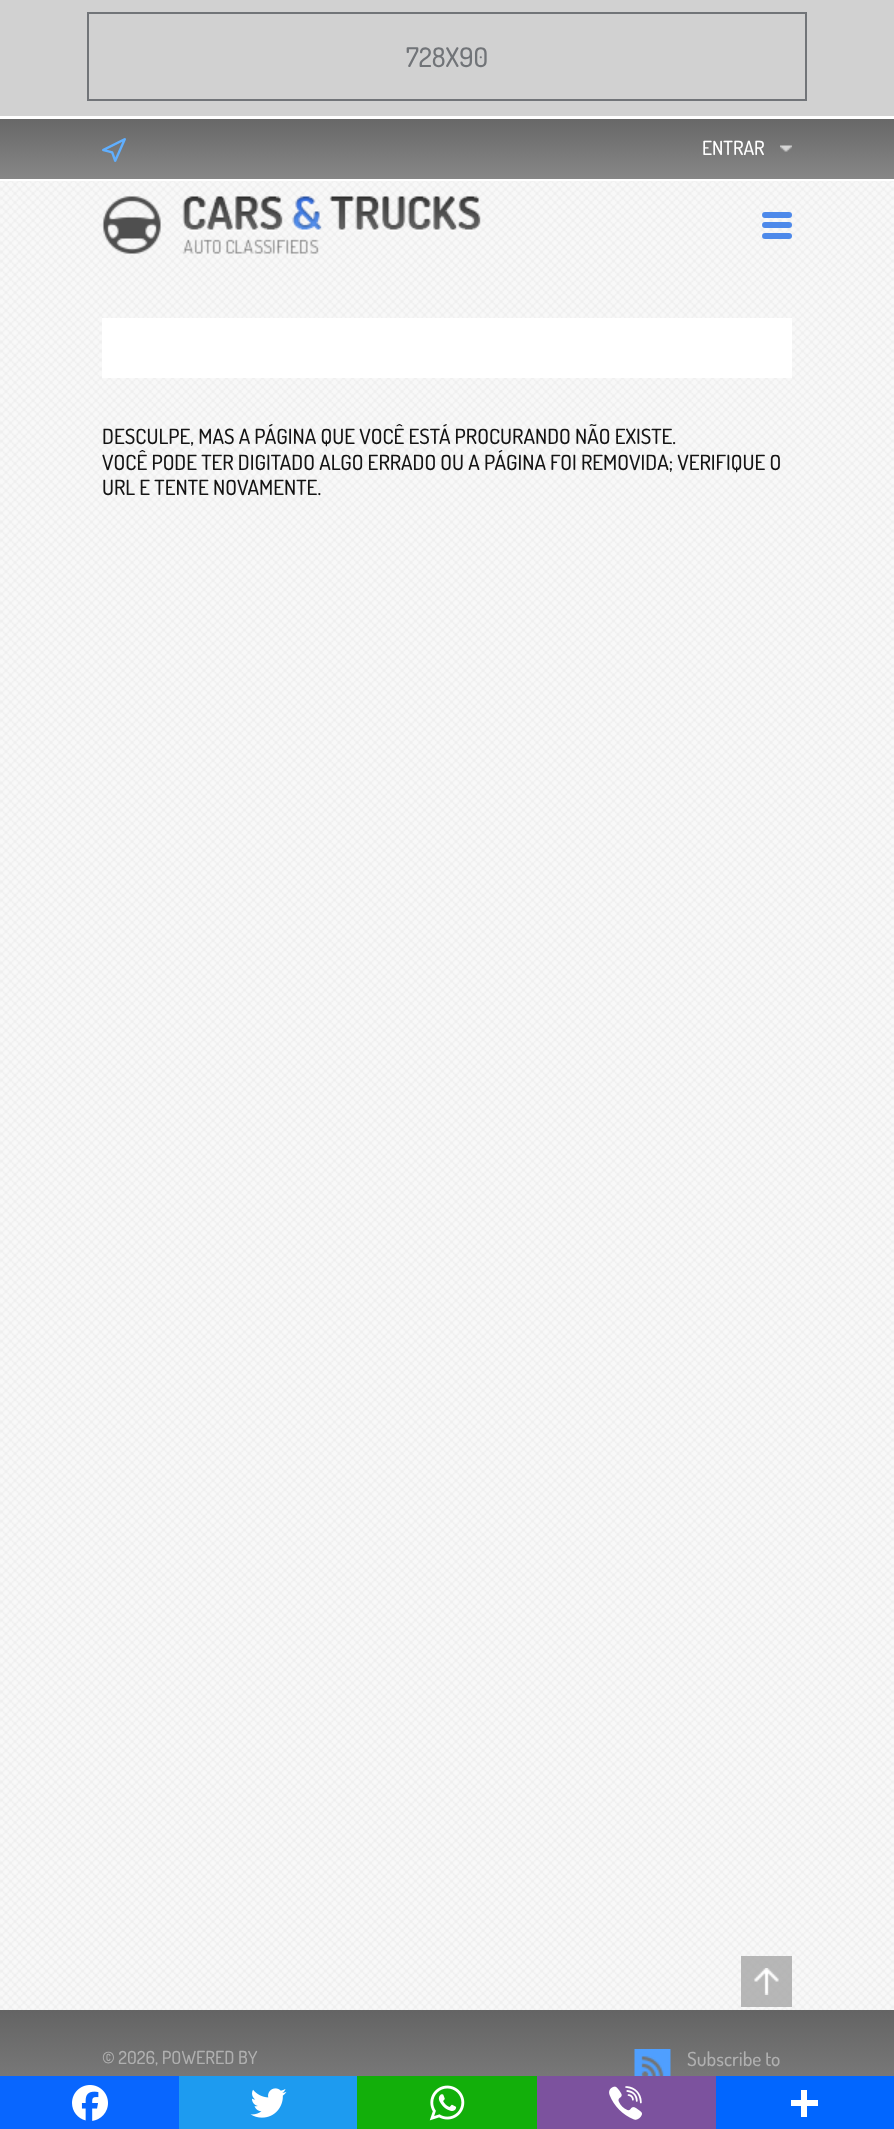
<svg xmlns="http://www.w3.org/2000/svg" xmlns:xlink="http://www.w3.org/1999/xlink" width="894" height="2129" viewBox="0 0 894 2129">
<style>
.cls-1{font:500 27px Dosis;fill:#717478}
.cls-2{font:500 19.5px Dosis;fill:#ffffff}
.cls-3{font:500 21px Dosis;fill:#141414}
.cls-4{font:500 18px Dosis;fill:#b0b0b0}
.cls-5{font:500 19.5px Dosis;fill:#b0b0b0}
</style>
<defs>
<linearGradient id="g1" gradientUnits="userSpaceOnUse" x1="447" y1="118" x2="447" y2="179"><stop offset="0" stop-color="#676767"/><stop offset="1" stop-color="#878787"/></linearGradient>
<linearGradient id="g2" gradientUnits="userSpaceOnUse" x1="447" y1="2010" x2="447" y2="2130"><stop offset="0" stop-color="#646464"/><stop offset="1" stop-color="#878787"/></linearGradient>
</defs>
<rect width="100%" height="100%" fill="#ffffff"/>
<image xlink:href="image0.png" x="0" y="181" width="894" height="1829"/>
<rect fill="#d1d1d1" x="0" y="0" width="894" height="116"/>
<rect fill="none" stroke="#717478" stroke-width="2" x="88" y="13" width="718" height="87"/>
<rect fill="url(#g1)" x="0" y="119" width="894" height="60"/>
<image xlink:href="image1.png" x="102" y="138" width="24" height="24"/>
<image xlink:href="image2.png" x="780" y="145" width="12" height="7"/>
<image xlink:href="image3.png" x="102" y="196" width="379" height="58"/>
<rect fill="#4d89ea" x="762" y="212" width="30" height="6" rx="3"/>
<rect fill="#4d89ea" x="762" y="222" width="30" height="6" rx="3"/>
<rect fill="#4d89ea" x="762" y="233" width="30" height="6" rx="3"/>
<rect fill="#ffffff" x="102" y="318" width="690" height="60"/>
<rect fill="url(#g2)" x="0" y="2010" width="894" height="66"/>
<rect fill="#a6a6a6" fill-opacity="0.8" x="741" y="1956" width="51" height="51"/>
<image xlink:href="image4.png" x="754" y="1968" width="25" height="27"/>
<image xlink:href="image5.png" x="634" y="2049" width="37" height="27"/>
<rect fill="#0866ff" x="0" y="2076" width="179" height="53"/>
<image xlink:href="image6.png" x="72" y="2085" width="36" height="36"/>
<rect fill="#1d9bf0" x="179" y="2076" width="178" height="53"/>
<image xlink:href="image7.png" x="250" y="2088" width="37" height="30"/>
<rect fill="#12af0a" x="357" y="2076" width="180" height="53"/>
<image xlink:href="image8.png" x="429" y="2085" width="36" height="36"/>
<rect fill="#7c529e" x="537" y="2076" width="179" height="53"/>
<image xlink:href="image9.png" x="609" y="2086" width="33" height="34"/>
<rect fill="#0166ff" x="716" y="2076" width="178" height="53"/>
<rect fill="#ffffff" x="801" y="2090" width="6" height="27"/>
<rect fill="#ffffff" x="791" y="2100" width="27" height="6"/>
<text class="cls-1" x="406" y="67">728X90</text>
<text class="cls-2" x="702" y="155">ENTRAR</text>
<text class="cls-3"><tspan x="102" y="444">DESCULPE, MAS A PÁGINA QUE VOCÊ ESTÁ PROCURANDO NÃO EXISTE.</tspan><tspan x="102" y="470">VOCÊ PODE TER DIGITADO ALGO ERRADO OU A PÁGINA FOI REMOVIDA; VERIFIQUE O</tspan><tspan x="102" y="495">URL E TENTE NOVAMENTE.</tspan></text>
<text class="cls-4" x="102" y="2064">© 2026, POWERED BY</text>
<text class="cls-5" x="687" y="2066">Subscribe to</text>
</svg>
